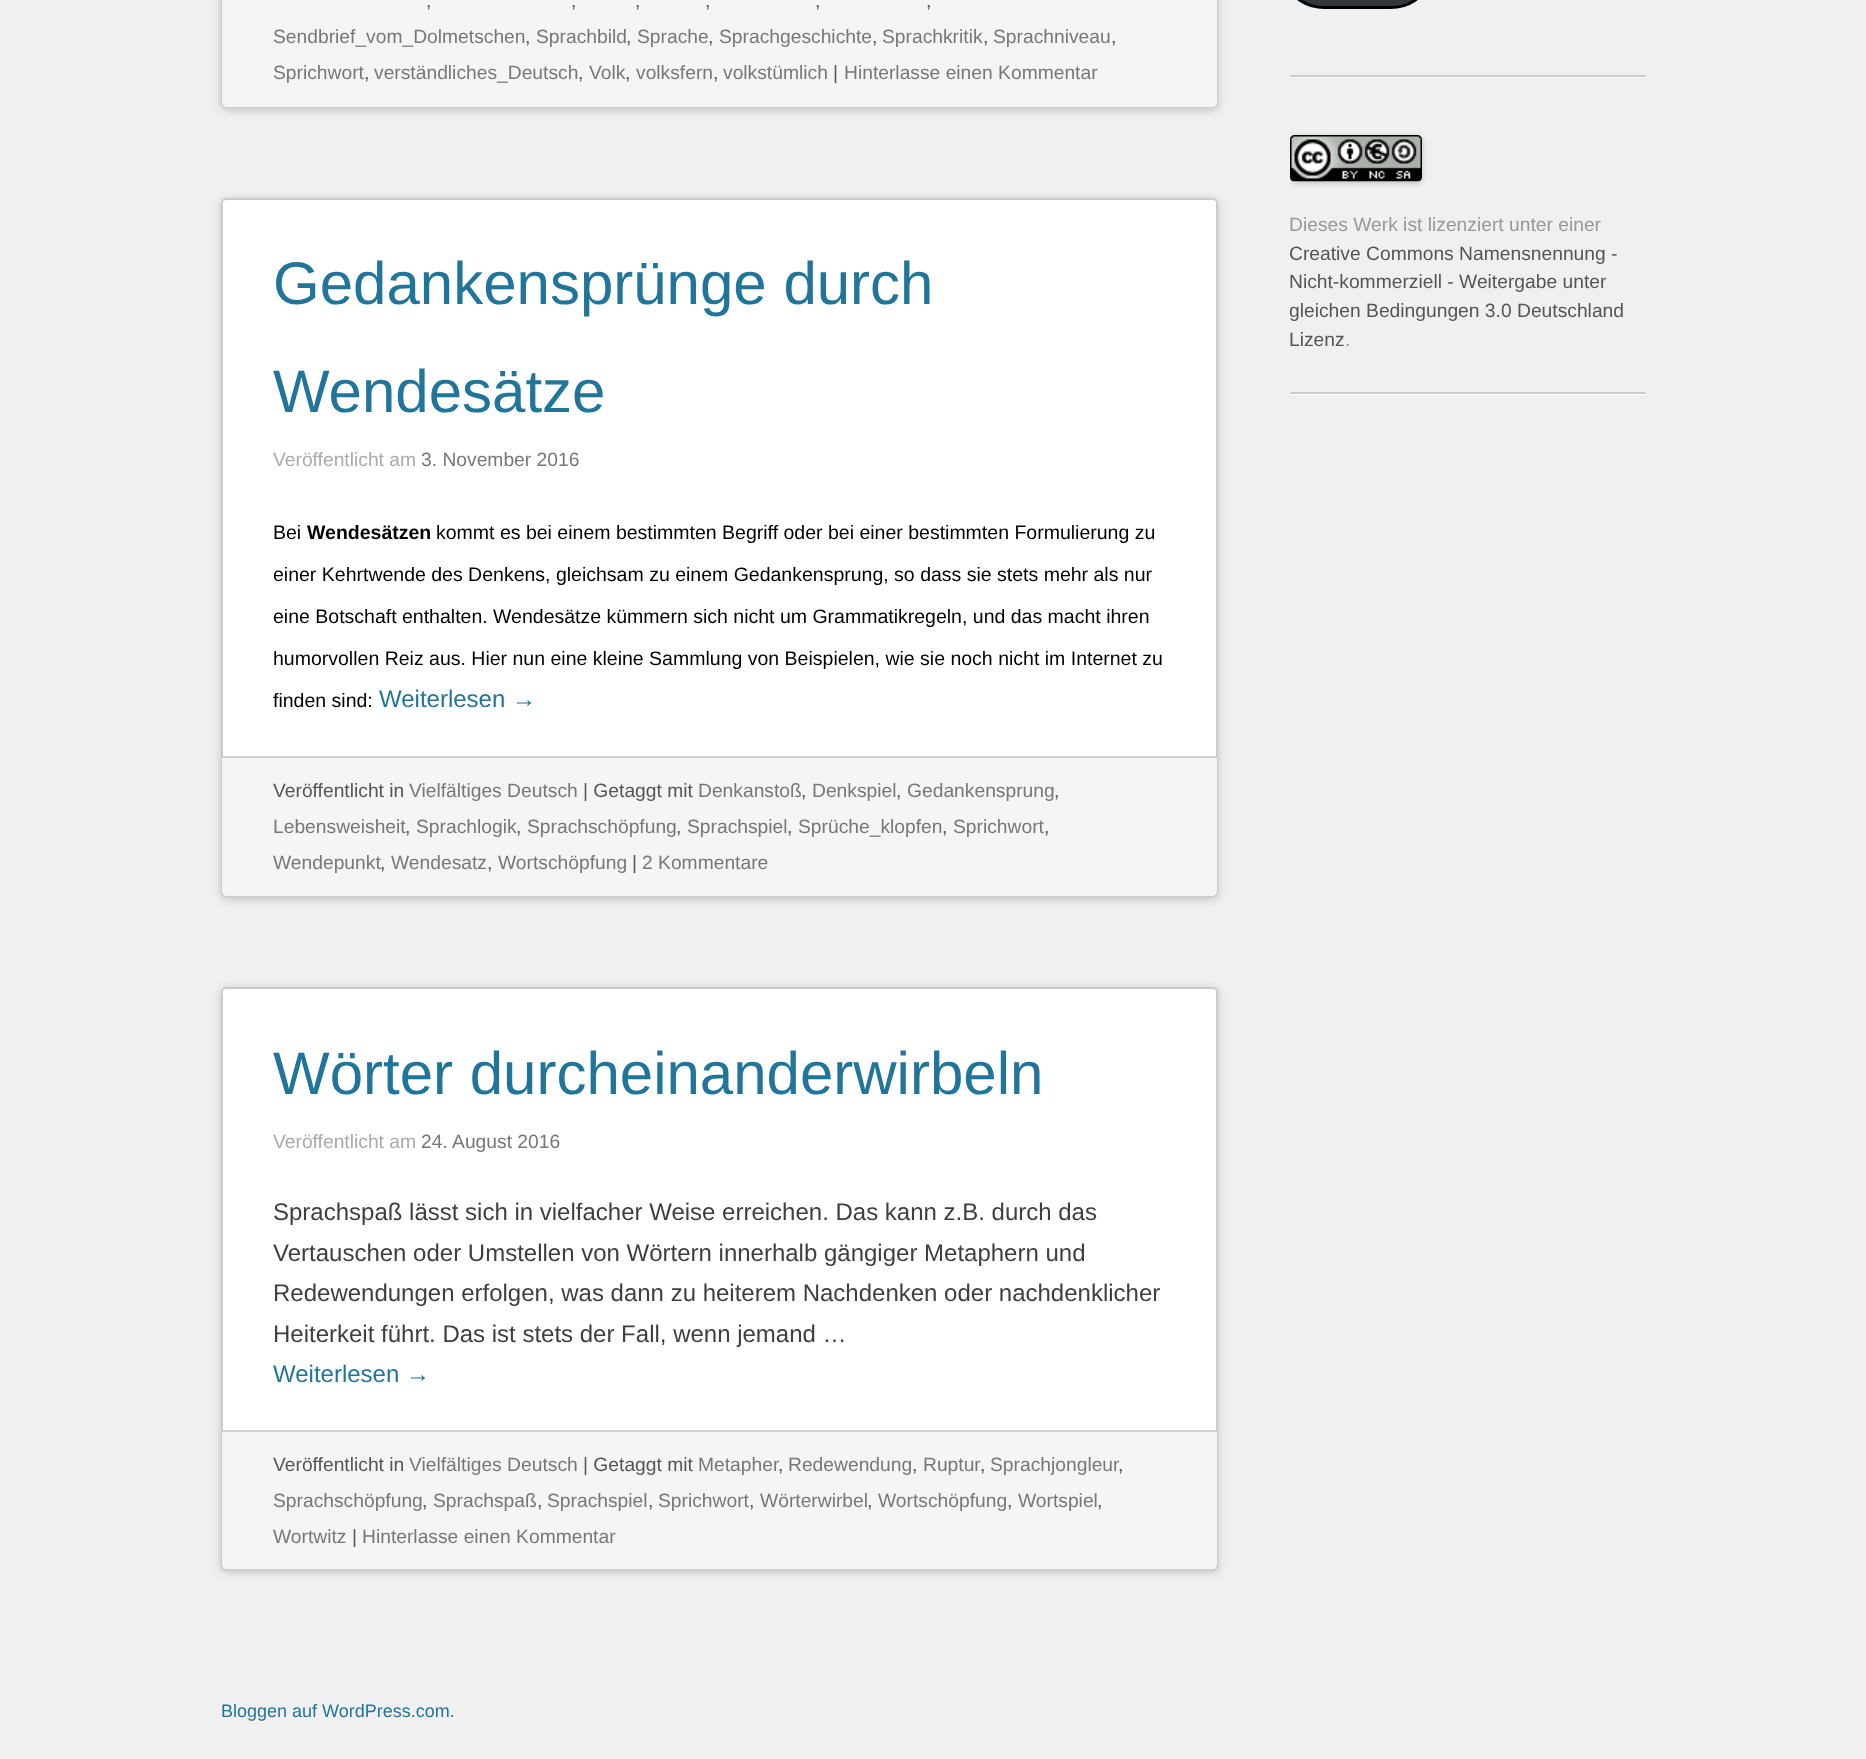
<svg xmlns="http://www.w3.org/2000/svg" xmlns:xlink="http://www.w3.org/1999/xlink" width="1866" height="1759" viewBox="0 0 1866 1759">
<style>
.cls-1{font:19.25px Liberation Sans;fill:#555555}
.cls-2{font:19.25px Liberation Sans;fill:#777777}
.cls-3{font:60px Liberation Sans;fill:#21759b}
.cls-4{font:19.25px Liberation Sans;fill:#aaaaaa}
.cls-5{font:19.5px Liberation Sans;fill:#000000}
.cls-6{font:bold 19.5px Liberation Sans;fill:#000000}
.cls-7{font:24px Liberation Sans;fill:#21759b}
.cls-8{font:24px Liberation Sans;fill:#3f3f3f}
.cls-9{font:19.25px Liberation Sans;fill:#999999}
.cls-10{font:18px Liberation Sans;fill:#21759b}
</style>
<defs>
<clipPath id="clip1"><rect x="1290" y="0" width="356" height="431"/></clipPath>
</defs>
<rect width="100%" height="100%" fill="#f0f0f0"/>
<rect fill="#000000" fill-opacity="0.2" filter="blur(4px)" x="221" y="-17" width="997" height="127" rx="5"/>
<rect fill="none" stroke="#cccccc" stroke-width="2" x="222" y="-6" width="995" height="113" rx="4"/>
<path fill="#f5f5f5" d="M222-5H1217V102C1217 105 1215 107 1212 107H227C224 107 222 105 222 102Z"/>
<rect fill="#000000" fill-opacity="0.2" filter="blur(4px)" x="221" y="200" width="997" height="699" rx="5"/>
<rect fill="#ffffff" stroke="#cccccc" stroke-width="2" x="222" y="199" width="995" height="697" rx="4"/>
<path fill="#f5f5f5" d="M222 756H1217V891C1217 894 1215 896 1212 896H227C224 896 222 894 222 891Z"/>
<rect fill="#d0d0d0" x="222" y="756" width="995" height="2"/>
<rect fill="#000000" fill-opacity="0.2" filter="blur(4px)" x="221" y="989" width="997" height="583" rx="5"/>
<rect fill="#ffffff" stroke="#cccccc" stroke-width="2" x="222" y="988" width="995" height="582" rx="4"/>
<path fill="#f5f5f5" d="M222 1430H1217V1564C1217 1567 1215 1569 1212 1569H227C224 1569 222 1567 222 1564Z"/>
<rect fill="#d0d0d0" x="222" y="1430" width="995" height="2"/>
<path fill="#ffffff" d="M1290 76V78H1646V-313V76Z"/>
<rect fill="#cccccc" x="1290" y="75" width="356" height="2"/>
<rect fill="#32373c" stroke="#000000" stroke-width="3" x="1291.5" y="-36.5" width="132" height="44" rx="33"/>
<path fill="#ffffff" d="M1290 393V395H1646V116V393Z"/>
<rect fill="#cccccc" x="1290" y="392" width="356" height="2"/>
<g clip-path="url(#clip1)">
<rect fill="#000000" fill-opacity="0.2" filter="blur(3px)" x="1290" y="137" width="132" height="46" rx="5"/>
</g>
<image xlink:href="image0.png" x="1290" y="135" width="132" height="47"/>
<text class="cls-1" x="426" y="7">,</text>
<text class="cls-1" x="571" y="7">,</text>
<text class="cls-1" x="635" y="7">,</text>
<text class="cls-1" x="705" y="7">,</text>
<text class="cls-1" x="815" y="7">,</text>
<text class="cls-1" x="926" y="7">,</text>
<text class="cls-2" x="273" y="43">Sendbrief_vom_Dolmetschen</text>
<text class="cls-1" x="525" y="43">,</text>
<text class="cls-2" x="536" y="43">Sprachbild</text>
<text class="cls-1" x="626" y="43">,</text>
<text class="cls-2" x="637" y="43">Sprache</text>
<text class="cls-1" x="708" y="43">,</text>
<text class="cls-2" x="719" y="43">Sprachgeschichte</text>
<text class="cls-1" x="872" y="43">,</text>
<text class="cls-2" x="882" y="43">Sprachkritik</text>
<text class="cls-1" x="983" y="43">,</text>
<text class="cls-2" x="993" y="43">Sprachniveau</text>
<text class="cls-1" x="1111" y="43">,</text>
<text class="cls-2" x="273" y="79">Sprichwort</text>
<text class="cls-1" x="364" y="79">,</text>
<text class="cls-2" x="374" y="79">verständliches_Deutsch</text>
<text class="cls-1" x="578" y="79">,</text>
<text class="cls-2" x="589" y="79">Volk</text>
<text class="cls-1" x="625" y="79">,</text>
<text class="cls-2" x="636" y="79">volksfern</text>
<text class="cls-1" x="713" y="79">,</text>
<text class="cls-2" x="723" y="79">volkstümlich</text>
<text class="cls-1" x="833" y="79">|</text>
<text class="cls-2" x="844" y="79">Hinterlasse einen Kommentar</text>
<text class="cls-3"><tspan x="273" y="304">Gedankensprünge durch</tspan><tspan x="273" y="412">Wendesätze</tspan></text>
<text class="cls-4" x="273" y="466">Veröffentlicht am</text>
<text class="cls-2" x="421" y="466">3. November 2016</text>
<text class="cls-5" x="273" y="539">Bei</text>
<text class="cls-6" x="307" y="539">Wendesätzen</text>
<text class="cls-5" x="436" y="539">kommt es bei einem bestimmten Begriff oder bei einer bestimmten Formulierung zu</text>
<text class="cls-5" x="273" y="581">einer Kehrtwende des Denkens, gleichsam zu einem Gedankensprung, so dass sie stets mehr als nur</text>
<text class="cls-5" x="273" y="623">eine Botschaft enthalten. Wendesätze kümmern sich nicht um Grammatikregeln, und das macht ihren</text>
<text class="cls-5" x="273" y="665">humorvollen Reiz aus. Hier nun eine kleine Sammlung von Beispielen, wie sie noch nicht im Internet zu</text>
<text class="cls-5" x="273" y="707">finden sind:</text>
<text class="cls-7" x="379" y="707">Weiterlesen →</text>
<text class="cls-1" x="273" y="797">Veröffentlicht in</text>
<text class="cls-2" x="409" y="797">Vielfältiges Deutsch</text>
<text class="cls-1" x="583" y="797">| Getaggt mit</text>
<text class="cls-2" x="698" y="797">Denkanstoß</text>
<text class="cls-1" x="801" y="797">,</text>
<text class="cls-2" x="812" y="797">Denkspiel</text>
<text class="cls-1" x="896" y="797">,</text>
<text class="cls-2" x="907" y="797">Gedankensprung</text>
<text class="cls-1" x="1054" y="797">,</text>
<text class="cls-2" x="273" y="833">Lebensweisheit</text>
<text class="cls-1" x="405" y="833">,</text>
<text class="cls-2" x="416" y="833">Sprachlogik</text>
<text class="cls-1" x="516" y="833">,</text>
<text class="cls-2" x="527" y="833">Sprachschöpfung</text>
<text class="cls-1" x="676" y="833">,</text>
<text class="cls-2" x="687" y="833">Sprachspiel</text>
<text class="cls-1" x="787" y="833">,</text>
<text class="cls-2" x="798" y="833">Sprüche_klopfen</text>
<text class="cls-1" x="942" y="833">,</text>
<text class="cls-2" x="953" y="833">Sprichwort</text>
<text class="cls-1" x="1044" y="833">,</text>
<text class="cls-2" x="273" y="869">Wendepunkt</text>
<text class="cls-1" x="380" y="869">,</text>
<text class="cls-2" x="391" y="869">Wendesatz</text>
<text class="cls-1" x="487" y="869">,</text>
<text class="cls-2" x="498" y="869">Wortschöpfung</text>
<text class="cls-1" x="632" y="869">|</text>
<text class="cls-2" x="642" y="869">2 Kommentare</text>
<text class="cls-3" x="273" y="1094">Wörter durcheinanderwirbeln</text>
<text class="cls-4" x="273" y="1148">Veröffentlicht am</text>
<text class="cls-2" x="421" y="1148">24. August 2016</text>
<text class="cls-8"><tspan x="273" y="1220">Sprachspaß lässt sich in vielfacher Weise erreichen. Das kann z.B. durch das</tspan><tspan x="273" y="1261">Vertauschen oder Umstellen von Wörtern innerhalb gängiger Metaphern und</tspan><tspan x="273" y="1301">Redewendungen erfolgen, was dann zu heiterem Nachdenken oder nachdenklicher</tspan><tspan x="273" y="1342">Heiterkeit führt. Das ist stets der Fall, wenn jemand …</tspan></text>
<text class="cls-7" x="273" y="1382">Weiterlesen →</text>
<text class="cls-1" x="273" y="1471">Veröffentlicht in</text>
<text class="cls-2" x="409" y="1471">Vielfältiges Deutsch</text>
<text class="cls-1" x="583" y="1471">| Getaggt mit</text>
<text class="cls-2" x="698" y="1471">Metapher</text>
<text class="cls-1" x="778" y="1471">,</text>
<text class="cls-2" x="788" y="1471">Redewendung</text>
<text class="cls-1" x="912" y="1471">,</text>
<text class="cls-2" x="923" y="1471">Ruptur</text>
<text class="cls-1" x="980" y="1471">,</text>
<text class="cls-2" x="990" y="1471">Sprachjongleur</text>
<text class="cls-1" x="1118" y="1471">,</text>
<text class="cls-2" x="273" y="1507">Sprachschöpfung</text>
<text class="cls-1" x="422" y="1507">,</text>
<text class="cls-2" x="433" y="1507">Sprachspaß</text>
<text class="cls-1" x="537" y="1507">,</text>
<text class="cls-2" x="547" y="1507">Sprachspiel</text>
<text class="cls-1" x="648" y="1507">,</text>
<text class="cls-2" x="658" y="1507">Sprichwort</text>
<text class="cls-1" x="749" y="1507">,</text>
<text class="cls-2" x="760" y="1507">Wörterwirbel</text>
<text class="cls-1" x="867" y="1507">,</text>
<text class="cls-2" x="878" y="1507">Wortschöpfung</text>
<text class="cls-1" x="1007" y="1507">,</text>
<text class="cls-2" x="1018" y="1507">Wortspiel</text>
<text class="cls-1" x="1097" y="1507">,</text>
<text class="cls-2" x="273" y="1543">Wortwitz</text>
<text class="cls-1" x="352" y="1543">|</text>
<text class="cls-2" x="362" y="1543">Hinterlasse einen Kommentar</text>
<text class="cls-9" x="1289" y="231">Dieses Werk ist lizenziert unter einer</text>
<text class="cls-1"><tspan x="1289" y="260">Creative Commons Namensnennung -</tspan><tspan x="1289" y="288">Nicht-kommerziell - Weitergabe unter</tspan><tspan x="1289" y="317">gleichen Bedingungen 3.0 Deutschland</tspan><tspan x="1289" y="346">Lizenz</tspan></text>
<text class="cls-9" x="1345" y="346">.</text>
<text class="cls-10" x="221" y="1717">Bloggen auf WordPress.com.</text>
</svg>
